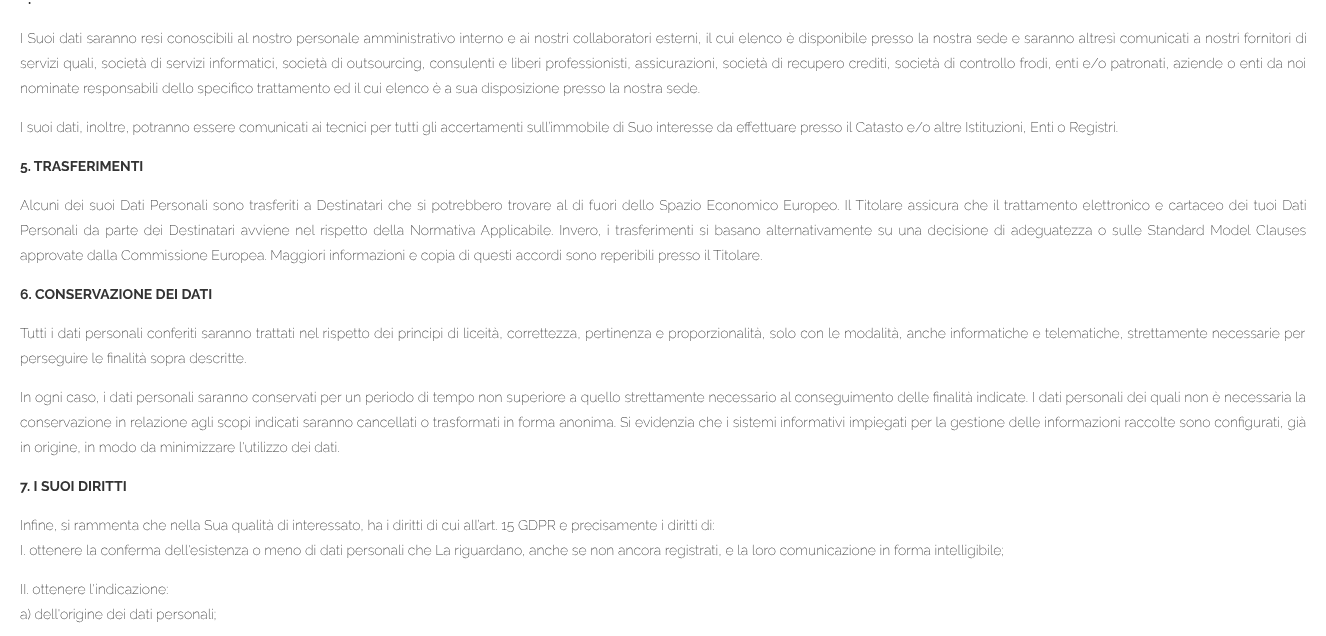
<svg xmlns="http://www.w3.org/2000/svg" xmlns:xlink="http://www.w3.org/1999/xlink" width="1326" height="636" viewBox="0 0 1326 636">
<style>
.cls-1{font:bold 14px Raleway;fill:#333333}
.cls-2{font:200 14px Raleway;fill:#333333}
</style>
<rect width="100%" height="100%" fill="#ffffff"/>
<text class="cls-1" x="28" y="4">.</text>
<text class="cls-2"><tspan x="20" y="43" word-spacing="0.6">I Suoi dati saranno resi conoscibili al nostro personale amministrativo interno e ai nostri collaboratori esterni, il cui elenco è disponibile presso la nostra sede e saranno altresì comunicati a nostri fornitori di</tspan><tspan x="20" y="68" word-spacing="0.6">servizi quali, società di servizi informatici, società di outsourcing, consulenti e liberi professionisti, assicurazioni, società di recupero crediti, società di controllo frodi, enti e/o patronati, aziende o enti da noi</tspan><tspan x="20" y="93">nominate responsabili dello specifico trattamento ed il cui elenco è a sua disposizione presso la nostra sede.</tspan></text>
<text class="cls-2" x="20" y="132">I suoi dati, inoltre, potranno essere comunicati ai tecnici per tutti gli accertamenti sull’immobile di Suo interesse da effettuare presso il Catasto e/o altre Istituzioni, Enti o Registri.</text>
<text class="cls-1" x="20" y="171">5. TRASFERIMENTI</text>
<text class="cls-2"><tspan x="20" y="210" word-spacing="1.6">Alcuni dei suoi Dati Personali sono trasferiti a Destinatari che si potrebbero trovare al di fuori dello Spazio Economico Europeo. Il Titolare assicura che il trattamento elettronico e cartaceo dei tuoi Dati</tspan><tspan x="20" y="235" word-spacing="2.1">Personali da parte dei Destinatari avviene nel rispetto della Normativa Applicabile. Invero, i trasferimenti si basano alternativamente su una decisione di adeguatezza o sulle Standard Model Clauses</tspan><tspan x="20" y="260">approvate dalla Commissione Europea. Maggiori informazioni e copia di questi accordi sono reperibili presso il Titolare.</tspan></text>
<text class="cls-1" x="20" y="299">6. CONSERVAZIONE DEI DATI</text>
<text class="cls-2"><tspan x="20" y="338" word-spacing="0.6">Tutti i dati personali conferiti saranno trattati nel rispetto dei principi di liceità, correttezza, pertinenza e proporzionalità, solo con le modalità, anche informatiche e telematiche, strettamente necessarie per</tspan><tspan x="20" y="363">perseguire le finalità sopra descritte.</tspan></text>
<text class="cls-2"><tspan x="20" y="402" word-spacing="0.15">In ogni caso, i dati personali saranno conservati per un periodo di tempo non superiore a quello strettamente necessario al conseguimento delle finalità indicate. I dati personali dei quali non è necessaria la</tspan><tspan x="20" y="427" word-spacing="0.25">conservazione in relazione agli scopi indicati saranno cancellati o trasformati in forma anonima. Si evidenzia che i sistemi informativi impiegati per la gestione delle informazioni raccolte sono configurati, già</tspan><tspan x="20" y="452">in origine, in modo da minimizzare l'utilizzo dei dati.</tspan></text>
<text class="cls-1" x="20" y="491">7. I SUOI DIRITTI</text>
<text class="cls-2"><tspan x="20" y="530">Infine, si rammenta che nella Sua qualità di interessato, ha i diritti di cui all’art. 15 GDPR e precisamente i diritti di:</tspan><tspan x="20" y="555">I. ottenere la conferma dell'esistenza o meno di dati personali che La riguardano, anche se non ancora registrati, e la loro comunicazione in forma intelligibile;</tspan></text>
<text class="cls-2"><tspan x="20" y="594">II. ottenere l'indicazione:</tspan><tspan x="20" y="619">a) dell'origine dei dati personali;</tspan></text>
</svg>
